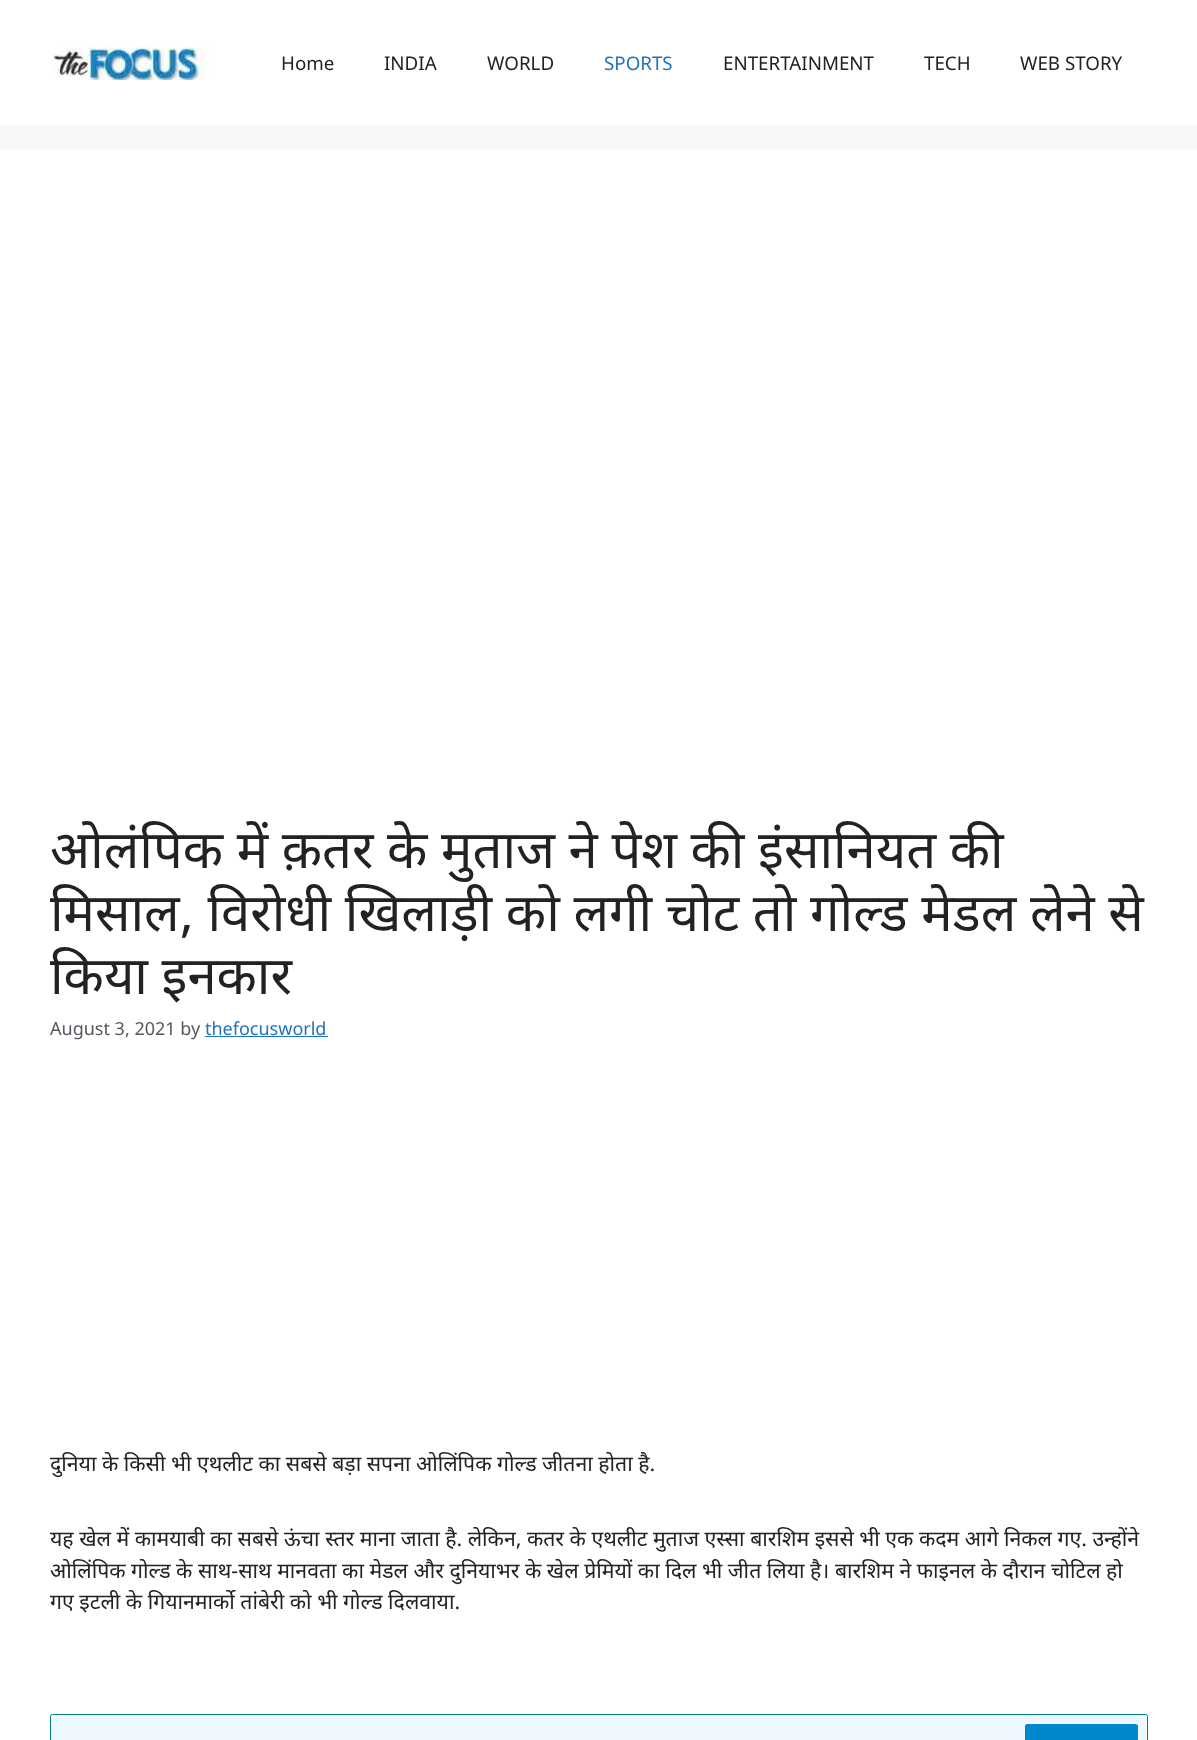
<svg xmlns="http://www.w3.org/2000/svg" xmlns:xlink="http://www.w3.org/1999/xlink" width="1197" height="1740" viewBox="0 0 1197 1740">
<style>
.cls-1{font:18.75px Noto Sans;fill:#222222}
.cls-2{font:18.75px Noto Sans;fill:#1e73be}
.cls-3{font:52.5px Noto Sans;fill:#222222}
.cls-4{font:18px Noto Sans;fill:#575760}
.cls-5{font:18px Noto Sans;fill:#1e73be}
.cls-6{font:21.25px Noto Sans;fill:#222222}
</style>
<rect width="100%" height="100%" fill="#f7f8f9"/>
<rect fill="#ffffff" x="0" y="0" width="1197" height="125"/>
<image xlink:href="image0.png" x="53" y="47" width="156" height="33"/>
<rect fill="#ffffff" x="0" y="150" width="1197" height="1590"/>
<rect fill="#1e73be" x="205" y="1036" width="123" height="1"/>
<rect fill="#f0f8ff" stroke="#008080" x="50.5" y="1714.5" width="1097" height="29" rx="2"/>
<rect fill="#0088cc" x="1025" y="1724" width="113" height="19" rx="2.5"/>
<text class="cls-1" x="281" y="70">Home</text>
<text class="cls-1" x="384" y="70">INDIA</text>
<text class="cls-1" x="487" y="70">WORLD</text>
<text class="cls-2" x="604" y="70">SPORTS</text>
<text class="cls-1" x="723" y="70">ENTERTAINMENT</text>
<text class="cls-1" x="924" y="70">TECH</text>
<text class="cls-1" x="1020" y="70">WEB STORY</text>
<text class="cls-3"><tspan x="50" y="868">ओलंपिक में क़तर के मुताज ने पेश की इंसानियत की</tspan><tspan x="50" y="931">मिसाल, विरोधी खिलाड़ी को लगी चोट तो गोल्ड मेडल लेने से</tspan><tspan x="50" y="994">किया इनकार</tspan></text>
<text class="cls-4" x="50" y="1035">August 3, 2021 by</text>
<text class="cls-5" x="205" y="1035">thefocusworld</text>
<text class="cls-6" x="50" y="1471">दुनिया के किसी भी एथलीट का सबसे बड़ा सपना ओलिंपिक गोल्ड जीतना होता है.</text>
<text class="cls-6"><tspan x="50" y="1546">यह खेल में कामयाबी का सबसे ऊंचा स्तर माना जाता है. लेकिन, कतर के एथलीट मुताज एस्सा बारशिम इससे भी एक कदम आगे निकल गए. उन्होंने</tspan><tspan x="50" y="1578">ओलिंपिक गोल्ड के साथ-साथ मानवता का मेडल और दुनियाभर के खेल प्रेमियों का दिल भी जीत लिया है। बारशिम ने फाइनल के दौरान चोटिल हो</tspan><tspan x="50" y="1609">गए इटली के गियानमार्को तांबेरी को भी गोल्ड दिलवाया.</tspan></text>
</svg>
